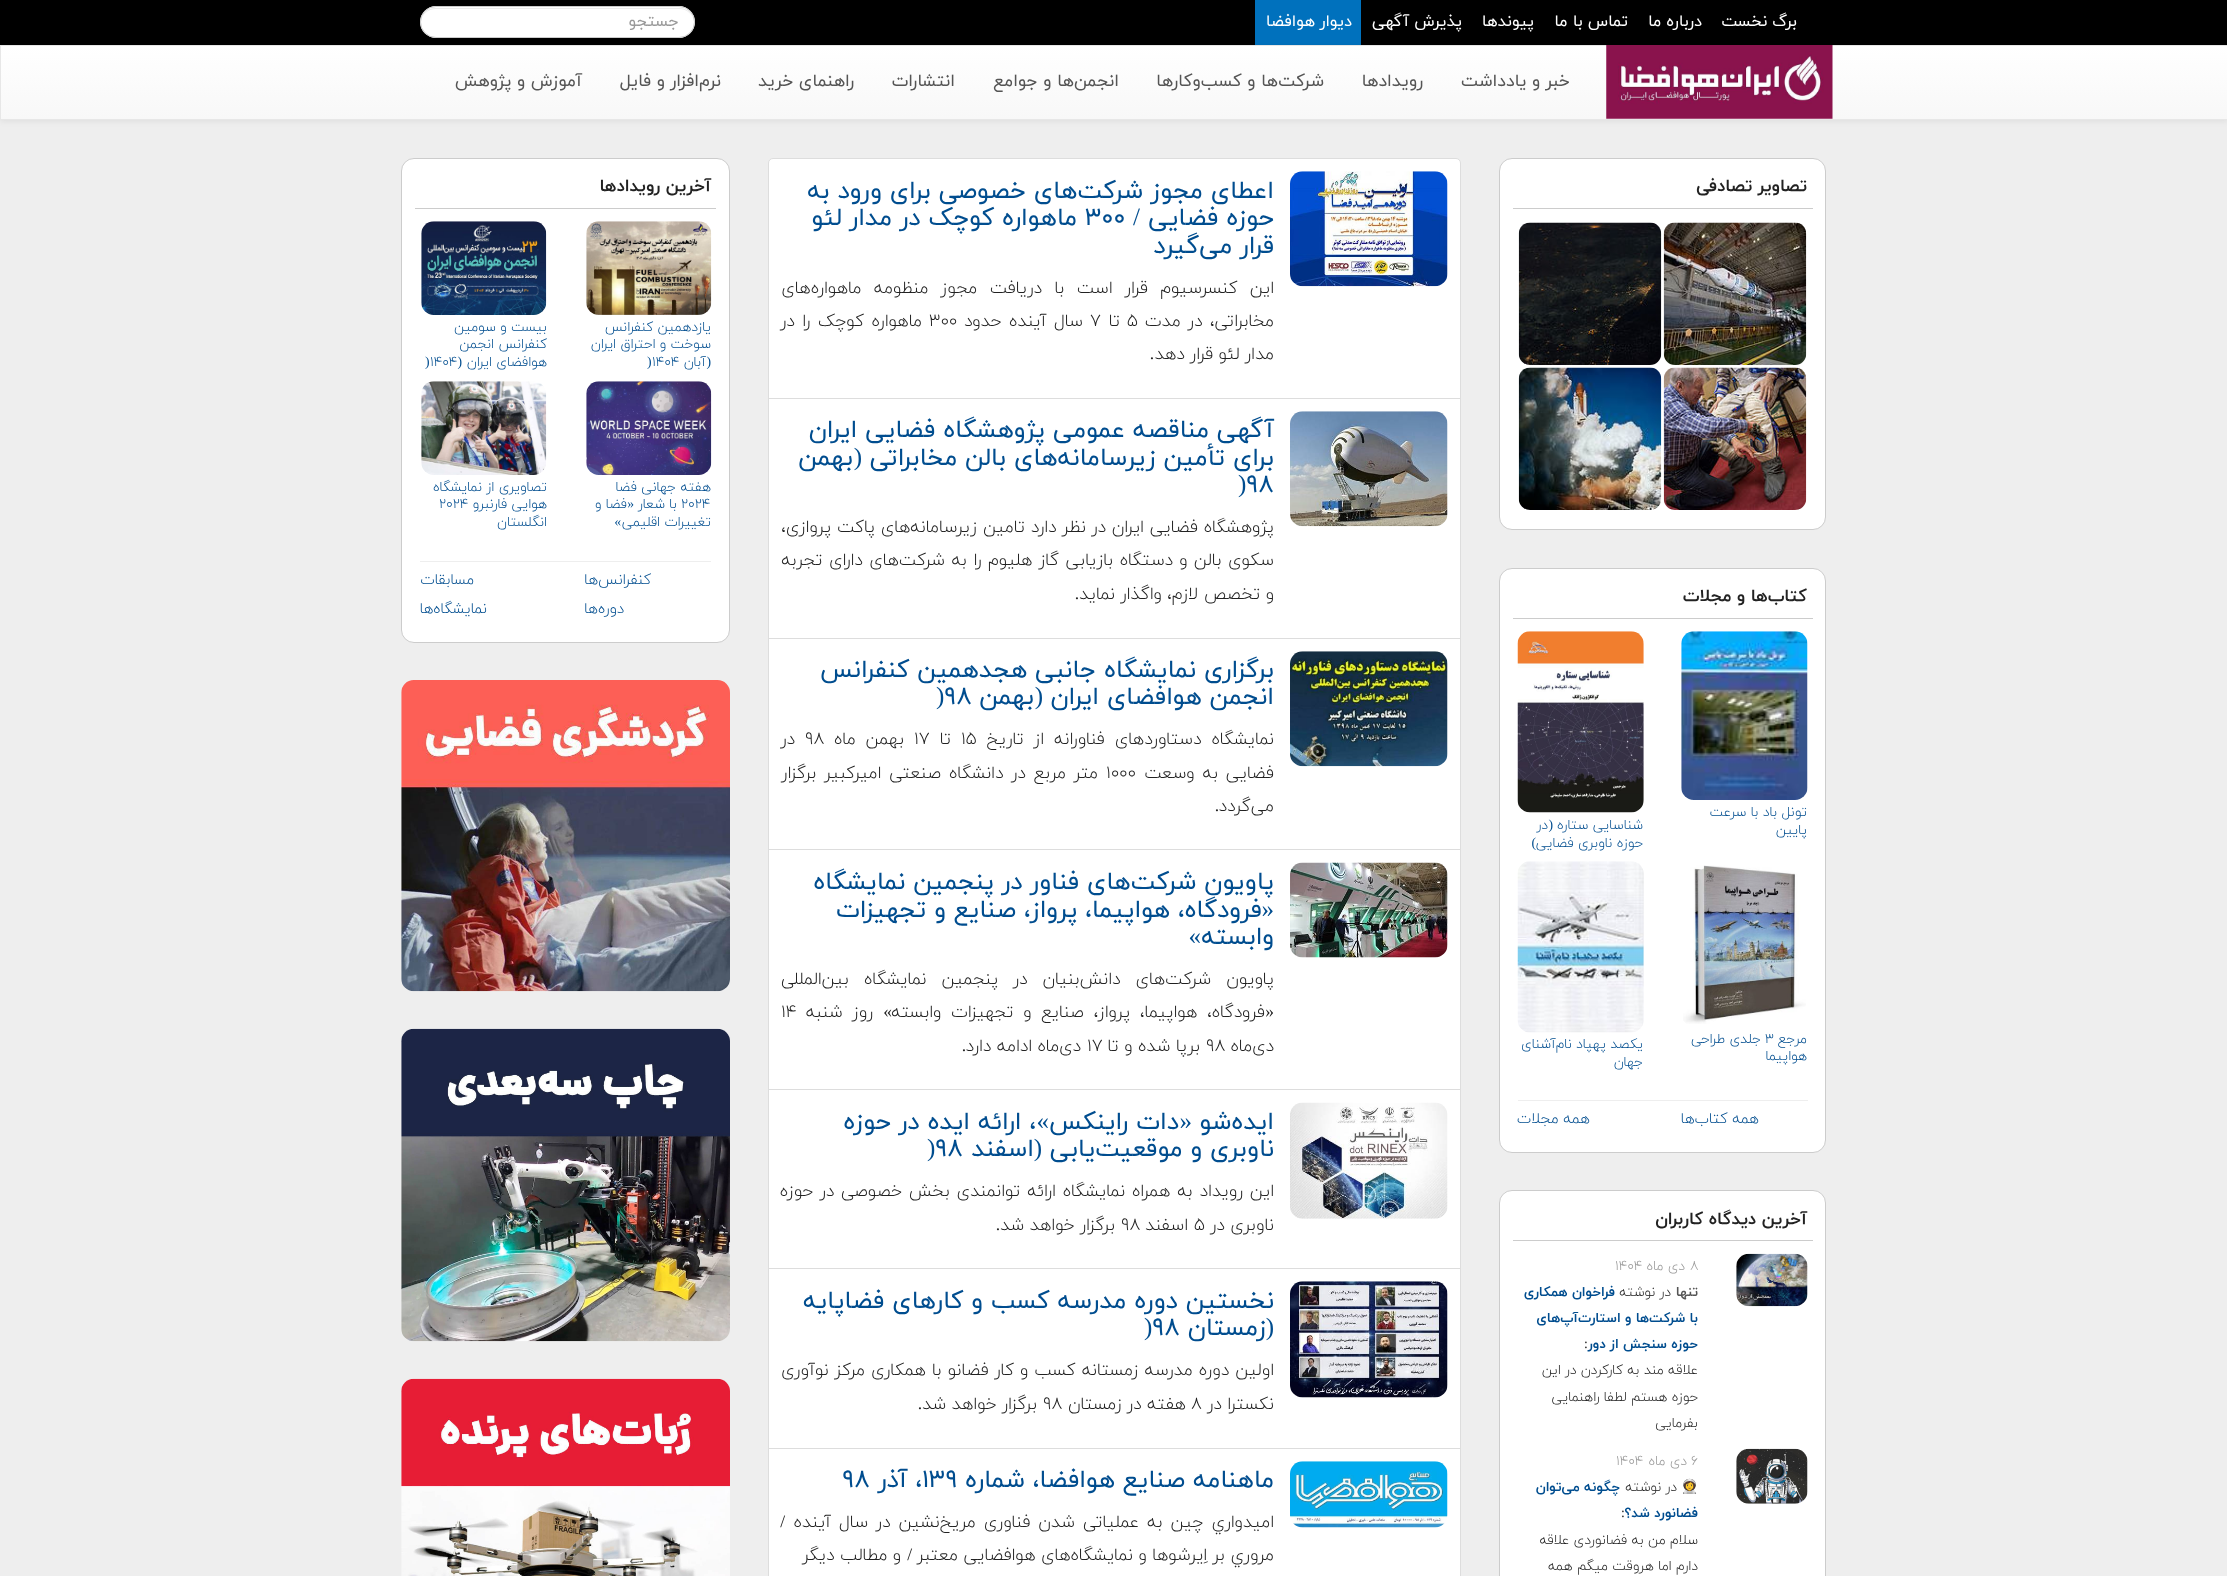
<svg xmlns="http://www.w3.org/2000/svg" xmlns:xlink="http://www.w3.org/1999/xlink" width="2227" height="1576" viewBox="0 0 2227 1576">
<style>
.cls-1{font:16.25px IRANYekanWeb;direction:rtl;fill:#ffffff}
.cls-2{font:16.25px IRANYekanWeb;direction:rtl;fill:#999999}
.cls-3{font:17.5px IRANYekanWeb;direction:rtl;fill:#555555}
.cls-4{font:bold 17.5px IRANYekanWeb;direction:rtl;fill:#222222}
.cls-5{font:300 13.75px IRANYekanWeb;direction:rtl;fill:#004d8f}
.cls-6{font:13.75px Liberation Serif;direction:rtl;fill:#004d8f}
.cls-7{font:300 13.75px IRANYekanWeb;fill:#004d8f}
.cls-8{font:300 15px IRANYekanWeb;direction:rtl;fill:#004d8f}
.cls-9{font:300 13.75px IRANYekanWeb;fill:#999999}
.cls-10{font:300 13.75px IRANYekanWeb;direction:rtl;fill:#999999}
.cls-11{font:bold 13.75px IRANYekanWeb;direction:rtl;fill:#555555}
.cls-12{font:300 13.75px IRANYekanWeb;direction:rtl;fill:#222222}
.cls-13{font:bold 13.75px IRANYekanWeb;direction:rtl;fill:#004d8f}
.cls-14{font:13.75px Liberation Serif;fill:#222222}
.cls-15{font:bold 13.75px Noto Color Emoji;fill:#555555}
.cls-16{font:25px IRANYekanWeb;direction:rtl;fill:#004d8f}
.cls-17{font:25px Liberation Serif;direction:rtl;fill:#004d8f}
.cls-18{font:25px IRANYekanWeb;fill:#004d8f}
.cls-19{font:300 17.5px IRANYekanWeb;direction:rtl;fill:#222222}
.cls-20{font:300 17.5px IRANYekanWeb;fill:#222222}
.cls-21{font:17.5px Liberation Serif;direction:rtl;fill:#222222}
.cls-22{font:25px Liberation Serif;fill:#004d8f}
.cls-23{font:13.75px Liberation Serif;fill:#004d8f}
</style>
<defs>
<linearGradient id="g1" gradientUnits="userSpaceOnUse" x1="1114" y1="46" x2="1114" y2="119"><stop offset="0" stop-color="#ffffff"/><stop offset="1" stop-color="#f8f8f8"/></linearGradient>
</defs>
<rect width="100%" height="100%" fill="#eeeeee"/>
<rect fill="#000000" x="0" y="0" width="2227" height="45"/>
<rect fill="#0071bd" x="1255" y="0" width="106" height="45"/>
<rect fill="#000000" fill-opacity="0.07" filter="blur(3px)" x="0" y="46" width="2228" height="75"/>
<rect fill="#ffffff" x="420" y="6" width="275" height="32" rx="16"/>
<path fill="#ececec" d="M436 9H679C687 9 694 15 694 23C694 15 688 8 680 8H435C427 8 421 15 421 23C421 15 428 9 436 9Z"/>
<rect fill="none" stroke="#cccccc" x="420.5" y="6.5" width="274" height="31" rx="15.5"/>
<rect fill="url(#g1)" x="1" y="46" width="2226" height="73"/>
<rect fill="none" stroke="#e7e7e7" x="0.5" y="45.5" width="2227" height="74"/>
<image xlink:href="image0.png" x="1606" y="45" width="227" height="74"/>
<rect fill="#ffffff" stroke="#cccccc" x="1499.5" y="158.5" width="326" height="371" rx="12.5"/>
<rect fill="#cccccc" x="1513" y="208" width="300" height="1"/>
<image xlink:href="image1.png" x="1663" y="222" width="144" height="143"/>
<image xlink:href="image2.png" x="1518" y="222" width="144" height="143"/>
<image xlink:href="image3.png" x="1663" y="367" width="144" height="143"/>
<image xlink:href="image4.png" x="1518" y="367" width="144" height="143"/>
<rect fill="#ffffff" stroke="#cccccc" x="1499.5" y="568.5" width="326" height="584" rx="12.5"/>
<rect fill="#cccccc" x="1513" y="618" width="300" height="1"/>
<image xlink:href="image5.png" x="1681" y="631" width="127" height="169"/>
<image xlink:href="image6.png" x="1517" y="631" width="127" height="182"/>
<image xlink:href="image7.png" x="1683" y="865" width="123" height="159"/>
<image xlink:href="image8.png" x="1517" y="861" width="127" height="172"/>
<rect fill="#eeeeee" x="1518" y="1100" width="290" height="1"/>
<rect fill="#ffffff" stroke="#cccccc" x="1499.5" y="1190.5" width="326" height="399" rx="12.5"/>
<rect fill="#cccccc" x="1513" y="1240" width="300" height="1"/>
<image xlink:href="image9.png" x="1736" y="1253" width="72" height="54"/>
<image xlink:href="image10.png" x="1736" y="1448" width="72" height="56"/>
<path fill="#ffffff" stroke="#dddddd" d="M773 158.5H1456C1458.5 158.5 1460.5 160.5 1460.5 163V398.5H768.5V163C768.5 160.5 770.5 158.5 773 158.5Z"/>
<image xlink:href="image11.png" x="1290" y="171" width="158" height="116"/>
<rect fill="#ffffff" stroke="#dddddd" x="768.5" y="398.5" width="692" height="240"/>
<image xlink:href="image12.png" x="1290" y="411" width="158" height="116"/>
<rect fill="#ffffff" stroke="#dddddd" x="768.5" y="638.5" width="692" height="211"/>
<image xlink:href="image13.png" x="1290" y="651" width="158" height="116"/>
<rect fill="#ffffff" stroke="#dddddd" x="768.5" y="849.5" width="692" height="240"/>
<image xlink:href="image14.png" x="1290" y="862" width="158" height="96"/>
<rect fill="#ffffff" stroke="#dddddd" x="768.5" y="1089.5" width="692" height="179"/>
<image xlink:href="image15.png" x="1290" y="1102" width="158" height="117"/>
<rect fill="#ffffff" stroke="#dddddd" x="768.5" y="1268.5" width="692" height="180"/>
<image xlink:href="image16.png" x="1290" y="1281" width="158" height="117"/>
<rect fill="#ffffff" stroke="#dddddd" x="768.5" y="1448.5" width="692" height="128"/>
<image xlink:href="image17.png" x="1290" y="1461" width="158" height="67"/>
<rect fill="#ffffff" stroke="#cccccc" x="401.5" y="158.5" width="328" height="484" rx="12.5"/>
<rect fill="#cccccc" x="415" y="208" width="301" height="1"/>
<image xlink:href="image18.png" x="586" y="221" width="126" height="94"/>
<image xlink:href="image19.png" x="421" y="221" width="126" height="94"/>
<image xlink:href="image20.png" x="586" y="381" width="126" height="94"/>
<image xlink:href="image21.png" x="421" y="381" width="126" height="94"/>
<rect fill="#eeeeee" x="420" y="561" width="291" height="1"/>
<image xlink:href="image22.png" x="401" y="680" width="329" height="312"/>
<image xlink:href="image23.png" x="401" y="1028" width="329" height="314"/>
<image xlink:href="image24.png" x="401" y="1378" width="329" height="198"/>
<text class="cls-1" x="1797" y="26">برگ نخست</text>
<text class="cls-1" x="1702" y="26">درباره ما</text>
<text class="cls-1" x="1628" y="26">تماس با ما</text>
<text class="cls-1" x="1534" y="26">پیوندها</text>
<text class="cls-1" x="1462" y="26">پذیرش آگهی</text>
<text class="cls-1" x="1352" y="26">دیوار هوافضا</text>
<text class="cls-2" x="679" y="26">جستجو</text>
<text class="cls-3" x="1570" y="86">خبر و یادداشت</text>
<text class="cls-3" x="1423" y="86">رویدادها</text>
<text class="cls-3" x="1324" y="86">شرکت‌ها و کسب‌وکار‌ها</text>
<text class="cls-3" x="1119" y="86">انجمن‌ها و جوامع</text>
<text class="cls-3" x="955" y="86">انتشارات</text>
<text class="cls-3" x="854" y="86">راهنمای خرید</text>
<text class="cls-3" x="721" y="86">نرم‌افزار و فایل</text>
<text class="cls-3" x="582" y="86">آموزش و پژوهش</text>
<text class="cls-4" x="1807" y="191">تصاویر تصادفی</text>
<text class="cls-4" x="1807" y="601">کتاب‌ها و مجلات</text>
<text class="cls-5"><tspan x="1807" y="816">تونل باد با سرعت</tspan><tspan x="1807" y="834">پایین</tspan></text>
<text class="cls-5" x="1643" y="829">شناسایی ستاره</text>
<text class="cls-6" x="1553" y="829">(</text>
<text class="cls-5" x="1548" y="829">در</text>
<text class="cls-5" x="1643" y="847">حوزه ناوبری فضایی</text>
<text class="cls-6" x="1536" y="847">)</text>
<text class="cls-5" x="1807" y="1043">مرجع</text>
<text class="cls-7" x="1765" y="1043">۳</text>
<text class="cls-5" x="1761" y="1043">جلدی طراحی</text>
<text class="cls-5" x="1807" y="1060">هواپیما</text>
<text class="cls-5"><tspan x="1643" y="1048">یکصد پهپاد نام‌آشنای</tspan><tspan x="1643" y="1066">جهان</tspan></text>
<text class="cls-8" x="1759" y="1123">همه کتاب‌ها</text>
<text class="cls-8" x="1590" y="1123">همه مجلات</text>
<text class="cls-4" x="1807" y="1224">آخرین دیدگاه کاربران</text>
<text class="cls-9" x="1690" y="1270">۸</text>
<text class="cls-10" x="1685" y="1270">دی ماه</text>
<text class="cls-9" x="1615" y="1270">۱۴۰۴</text>
<text class="cls-11" x="1698" y="1296">تنها</text>
<text class="cls-12" x="1671" y="1296">در نوشته</text>
<text class="cls-13" x="1615" y="1296">فراخوان همکاری</text>
<text class="cls-13"><tspan x="1698" y="1322">با شرکت‌ها و استارت‌‌آپ‌‌های</tspan><tspan x="1698" y="1348">حوزه سنجش از دور</tspan></text>
<text class="cls-14" x="1584" y="1348">:</text>
<text class="cls-12"><tspan x="1698" y="1374">علاقه مند به کارکردن در این</tspan><tspan x="1698" y="1401">حوزه هستم لطفا راهنمایی</tspan><tspan x="1698" y="1427">بفرمایی</tspan></text>
<text class="cls-9" x="1691" y="1465">۶</text>
<text class="cls-10" x="1687" y="1465">دی ماه</text>
<text class="cls-9" x="1616" y="1465">۱۴۰۴</text>
<text class="cls-15" x="1681" y="1491">👩‍🚀</text>
<text class="cls-12" x="1677" y="1491">در نوشته</text>
<text class="cls-13" x="1620" y="1491">چگونه می‌توان</text>
<text class="cls-13" x="1698" y="1517">فضانورد شد؟</text>
<text class="cls-14" x="1621" y="1517">:</text>
<text class="cls-12"><tspan x="1698" y="1544">سلام من به فضانوردی علاقه</tspan><tspan x="1698" y="1570">دارم اما هروقت میگم همه</tspan></text>
<text class="cls-16"><tspan x="1274" y="198">اعطای مجوز شرکت‌های خصوصی برای ورود به</tspan><tspan x="1274" y="225">حوزه فضایی</tspan></text>
<text class="cls-17" x="1140" y="225">/</text>
<text class="cls-18" x="1085" y="225">۳۰۰</text>
<text class="cls-16" x="1077" y="225">ماهواره کوچک در مدار لئو</text>
<text class="cls-16" x="1274" y="253">قرار می‌گیرد</text>
<text class="cls-19"><tspan x="1274" y="293" word-spacing="7">این کنسرسیوم قرار است با دریافت مجوز منظومه ماهواره‌های</tspan><tspan x="1274" y="326" word-spacing="2">مخابراتی، در مدت</tspan></text>
<text class="cls-20" x="1127" y="326">۵</text>
<text class="cls-19" x="1120" y="326">تا</text>
<text class="cls-20" x="1090" y="326">۷</text>
<text class="cls-19" x="1083" y="326" word-spacing="2">سال آینده حدود</text>
<text class="cls-20" x="929" y="326">۳۰۰</text>
<text class="cls-19" x="922" y="326" word-spacing="2">ماهواره کوچک را در</text>
<text class="cls-19" x="1274" y="359">مدار لئو</text>
<text class="cls-19" x="1213" y="359">قرار دهد</text>
<text class="cls-21" x="1154" y="359">.</text>
<text class="cls-16"><tspan x="1274" y="437">آگهی مناقصه عمومی پژوهشگاه فضایی ایران</tspan><tspan x="1274" y="465">برای تأمین زیرسامانه‌های بالن مخابراتی</tspan></text>
<text class="cls-17" x="862" y="465">(</text>
<text class="cls-16" x="853" y="465">بهمن</text>
<text class="cls-18" x="1246" y="492">۹۸</text>
<text class="cls-22" x="1238" y="492">)</text>
<text class="cls-19"><tspan x="1274" y="532" word-spacing="0.25">پژوهشگاه فضایی ایران در نظر دارد تامین زیرسامانه‌های پاکت پروازی،</tspan><tspan x="1274" y="565" word-spacing="1">سکوی بالن و</tspan></text>
<text class="cls-19" x="1173" y="565" word-spacing="1">دستگاه بازیابی گاز هلیوم را به شرکت‌های دارای تجربه</text>
<text class="cls-19" x="1274" y="599">و تخصص لازم، واگذار</text>
<text class="cls-19" x="1115" y="599">نماید</text>
<text class="cls-21" x="1079" y="599">.</text>
<text class="cls-16"><tspan x="1274" y="677">برگزاری نمایشگاه جانبی هجدهمین کنفرانس</tspan><tspan x="1274" y="704">انجمن هوافضای ایران</tspan></text>
<text class="cls-17" x="1043" y="704">(</text>
<text class="cls-16" x="1034" y="704">بهمن</text>
<text class="cls-18" x="944" y="704">۹۸</text>
<text class="cls-22" x="936" y="704">)</text>
<text class="cls-19" x="1274" y="744" word-spacing="4.5">نمایشگاه دستاوردهای فناورانه از تاریخ</text>
<text class="cls-20" x="961" y="744">۱۵</text>
<text class="cls-19" x="951" y="744">تا</text>
<text class="cls-20" x="914" y="744">۱۷</text>
<text class="cls-19" x="904" y="744" word-spacing="4.5">بهمن ماه</text>
<text class="cls-20" x="805" y="744">۹۸</text>
<text class="cls-19" x="795" y="744">در</text>
<text class="cls-19" x="1274" y="778">فضایی</text>
<text class="cls-19" x="1218" y="778" word-spacing="2.5">به وسعت</text>
<text class="cls-20" x="1106" y="778">۱۰۰۰</text>
<text class="cls-19" x="1098" y="778" word-spacing="2.5">متر مربع در دانشگاه صنعتی امیرکبیر برگزار</text>
<text class="cls-19" x="1274" y="811">می‌گردد</text>
<text class="cls-21" x="1219" y="811">.</text>
<text class="cls-16" x="1274" y="889">پاویون شرکت‌های فناور در پنجمین نمایشگاه</text>
<text class="cls-17" x="1274" y="917">«</text>
<text class="cls-16" x="1262" y="917">فرودگاه، هواپیما، پرواز، صنایع و تجهیزات</text>
<text class="cls-16" x="1274" y="944">وابسته</text>
<text class="cls-17" x="1201" y="944">»</text>
<text class="cls-19" x="1274" y="984" word-spacing="9.5">پاویون شرکت‌های دانش‌بنیان در پنجمین نمایشگاه بین‌المللی</text>
<text class="cls-21" x="1274" y="1017">«</text>
<text class="cls-19" x="1265" y="1017" word-spacing="4.25">فرودگاه، هواپیما، پرواز، صنایع و تجهیزات وابسته</text>
<text class="cls-21" x="892" y="1017">»</text>
<text class="cls-19" x="873" y="1017" word-spacing="4.25">روز شنبه</text>
<text class="cls-20" x="781" y="1017">۱۴</text>
<text class="cls-19" x="1274" y="1051">دی‌ماه</text>
<text class="cls-20" x="1206" y="1051">۹۸</text>
<text class="cls-19" x="1200" y="1051">برپا شده و تا</text>
<text class="cls-20" x="1087" y="1051">۱۷</text>
<text class="cls-19" x="1081" y="1051">دی‌ماه ادامه دارد</text>
<text class="cls-21" x="966" y="1051">.</text>
<text class="cls-16" x="1274" y="1129">ایده‌شو</text>
<text class="cls-17" x="1192" y="1129">«</text>
<text class="cls-16" x="1179" y="1129">دات راینکس</text>
<text class="cls-17" x="1049" y="1129">»</text>
<text class="cls-16" x="1036" y="1129">، ارائه ایده در حوزه</text>
<text class="cls-16" x="1274" y="1156">ناوبری و موقعیت‌یابی</text>
<text class="cls-17" x="1042" y="1156">(</text>
<text class="cls-16" x="1034" y="1156">اسفند</text>
<text class="cls-18" x="935" y="1156">۹۸</text>
<text class="cls-22" x="927" y="1156">)</text>
<text class="cls-19"><tspan x="1274" y="1196" word-spacing="1.25">این رویداد به همراه نمایشگاه ارائه توانمندی بخش خصوصی در حوزه</tspan><tspan x="1274" y="1230">ناوبری در</tspan></text>
<text class="cls-20" x="1194" y="1230">۵</text>
<text class="cls-19" x="1188" y="1230">اسفند</text>
<text class="cls-20" x="1121" y="1230">۹۸</text>
<text class="cls-19" x="1115" y="1230">برگزار خواهد شد</text>
<text class="cls-21" x="1000" y="1230">.</text>
<text class="cls-16" x="1274" y="1308">نخستین دوره مدرسه کسب و کارهای فضاپایه</text>
<text class="cls-17" x="1274" y="1335">(</text>
<text class="cls-16" x="1266" y="1335">زمستان</text>
<text class="cls-18" x="1152" y="1335">۹۸</text>
<text class="cls-22" x="1144" y="1335">)</text>
<text class="cls-19"><tspan x="1274" y="1375" word-spacing="0.6">اولین دوره مدرسه زمستانه کسب و کار فضانو با همکاری مرکز نوآوری</tspan><tspan x="1274" y="1409">نکسترا در</tspan></text>
<text class="cls-20" x="1191" y="1409">۸</text>
<text class="cls-19" x="1186" y="1409">هفته در زمستان</text>
<text class="cls-20" x="1043" y="1409">۹۸</text>
<text class="cls-19" x="1037" y="1409">برگزار خواهد شد</text>
<text class="cls-21" x="922" y="1409">.</text>
<text class="cls-16" x="1274" y="1487">ماهنامه صنایع هوافضا، شماره</text>
<text class="cls-18" x="922" y="1487">۱۳۹</text>
<text class="cls-16" x="922" y="1487">، آذر</text>
<text class="cls-18" x="842" y="1487">۹۸</text>
<text class="cls-19" x="1274" y="1527" word-spacing="2.5">اميدواري چين به عملياتی شدن فناوری مريخ‌نشين در سال آينده</text>
<text class="cls-21" x="785" y="1527">/</text>
<text class="cls-19" x="1274" y="1560">مروري بر اِيرشوها و نمايشگاه‌های هوافضایی معتبر</text>
<text class="cls-21" x="912" y="1560">/</text>
<text class="cls-19" x="901" y="1560">و مطالب دیگر</text>
<text class="cls-4" x="711" y="191">آخرین رویدادها</text>
<text class="cls-5"><tspan x="711" y="331">یازدهمین کنفرانس</tspan><tspan x="711" y="348">سوخت و احتراق ایران</tspan></text>
<text class="cls-6" x="711" y="366">(</text>
<text class="cls-5" x="706" y="366">آبان‌</text>
<text class="cls-7" x="652" y="366">۱۴۰۴</text>
<text class="cls-23" x="647" y="366">)</text>
<text class="cls-5"><tspan x="547" y="331">بیست و سومین</tspan><tspan x="547" y="348">کنفرانس انجمن</tspan><tspan x="547" y="366">هوافضای ايران</tspan></text>
<text class="cls-6" x="462" y="366">(</text>
<text class="cls-7" x="430" y="366">۱۴۰۴</text>
<text class="cls-23" x="425" y="366">)</text>
<text class="cls-5" x="711" y="491">هفته جهانی فضا</text>
<text class="cls-7" x="681" y="508">۲۰۲۴</text>
<text class="cls-5" x="677" y="508">با شعار</text>
<text class="cls-6" x="634" y="508">«</text>
<text class="cls-5" x="627" y="508">فضا و</text>
<text class="cls-5" x="711" y="526">تغییرات اقلیمی</text>
<text class="cls-6" x="621" y="526">»</text>
<text class="cls-5"><tspan x="547" y="491">تصاویری از نمایشگاه</tspan><tspan x="547" y="508">هوایی فارنبرو</tspan></text>
<text class="cls-7" x="439" y="508">۲۰۲۴</text>
<text class="cls-5" x="547" y="526">انگلستان</text>
<text class="cls-8" x="651" y="584">کنفرانس‌ها</text>
<text class="cls-8" x="474" y="584">مسابقات</text>
<text class="cls-8" x="624" y="613">دوره‌ها</text>
<text class="cls-8" x="487" y="613">نمایشگاه‌ها</text>
</svg>
